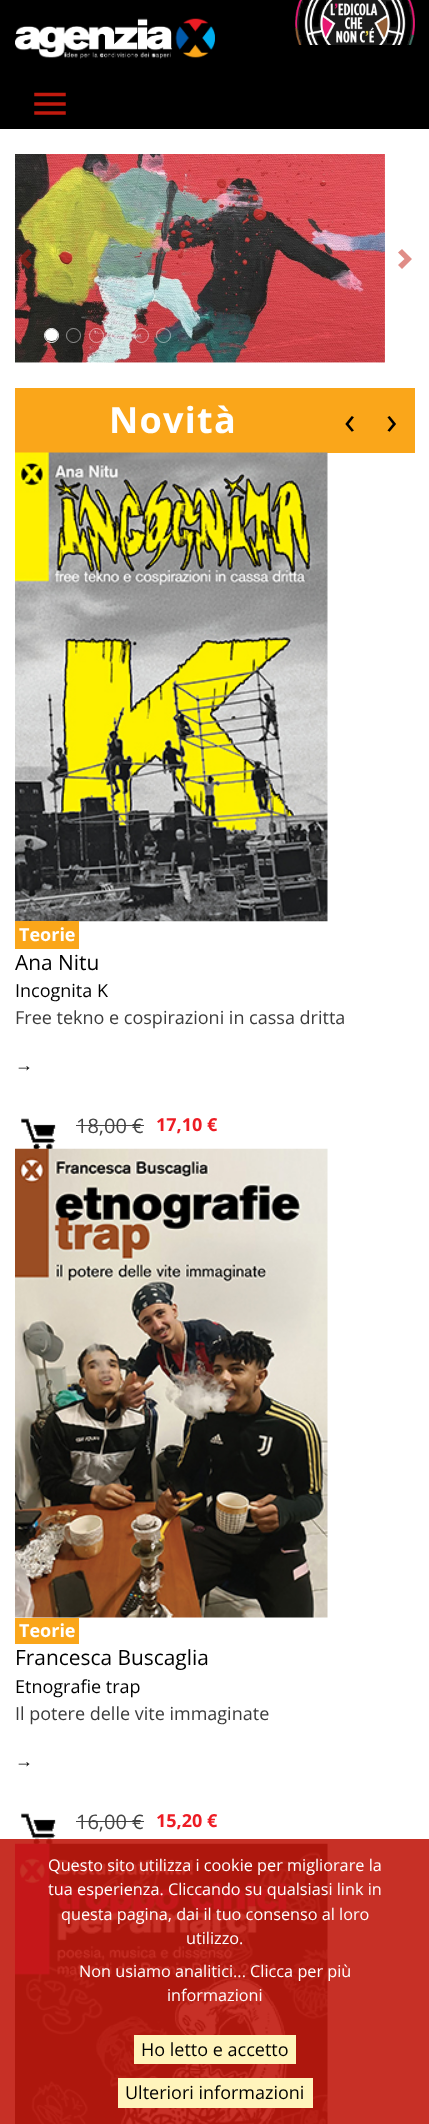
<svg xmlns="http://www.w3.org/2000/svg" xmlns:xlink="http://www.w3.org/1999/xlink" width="429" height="2124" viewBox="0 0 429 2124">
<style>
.cls-1{font:bold 36px Open Sans;letter-spacing:1.25px;fill:#ffffff}
.cls-2{font:38px Open Sans;letter-spacing:2px;fill:#000000}
.cls-3{font:bold 18px Open Sans;fill:#ffffff}
.cls-4{font:20.9px Open Sans;fill:#000000}
.cls-5{font:18px Open Sans;fill:#000000}
.cls-6{font:18px Open Sans;fill:#3b3b3b}
.cls-7{font:18px Liberation Sans;fill:#000000}
.cls-8{font:20px Open Sans;fill:#444444}
.cls-9{font:bold 18px Open Sans;fill:#ed1c24}
.cls-10{font:16.25px Open Sans;fill:#ffffff}
</style>
<rect width="100%" height="100%" fill="#ffffff"/>
<rect fill="#000000" x="0" y="0" width="429" height="129"/>
<image xlink:href="image0.png" x="15" y="18" width="200" height="41"/>
<image xlink:href="image1.png" x="295" y="0" width="120" height="45"/>
<path fill="none" stroke="#c11a0e" stroke-width="3.5" stroke-linecap="square" d="M36 94.5H64M36 104H64M36 113H64"/>
<image xlink:href="image2.png" x="15" y="154" width="370" height="209"/>
<path fill="#c11a0e" fill-opacity="0.5" d="M28 249L18 259L28 269L32 265L25.5 259L32 252.5Z"/>
<path fill="#e08d87" d="M402 249L398 252.5L404.5 259L398 265L402 269L412 259Z"/>
<rect fill="#ffffff" x="45" y="329" width="13" height="12" rx="6"/>
<circle fill="none" stroke="#ffffff" cx="51.5" cy="335.5" r="7"/>
<circle fill="none" stroke="#ffffff" stroke-opacity="0.5" cx="73.5" cy="335.5" r="7"/>
<circle fill="none" stroke="#ffffff" stroke-opacity="0.5" cx="96.5" cy="335.5" r="7"/>
<circle fill="none" stroke="#ffffff" stroke-opacity="0.5" cx="118.5" cy="335.5" r="7"/>
<circle fill="none" stroke="#ffffff" stroke-opacity="0.5" cx="141.5" cy="335.5" r="7"/>
<circle fill="none" stroke="#ffffff" stroke-opacity="0.5" cx="163.5" cy="335.5" r="7"/>
<rect fill="#faa61a" x="15" y="388" width="400" height="65"/>
<image xlink:href="image3.png" x="15" y="452" width="313" height="470"/>
<rect fill="#faa61a" x="15" y="921" width="64" height="28"/>
<image xlink:href="image4.png" x="21" y="1118" width="35" height="31"/>
<rect fill="#444444" x="76" y="1125" width="68" height="1"/>
<image xlink:href="image5.png" x="15" y="1148" width="313" height="470"/>
<rect fill="#faa61a" x="15" y="1618" width="64" height="26"/>
<image xlink:href="image4.png" x="21" y="1813" width="35" height="31"/>
<rect fill="#444444" x="76" y="1821" width="68" height="1"/>
<image xlink:href="image6.png" x="15" y="1843" width="313" height="281"/>
<rect fill="#c11a0e" fill-opacity="0.9" x="0" y="1839" width="429" height="285"/>
<rect fill="#fff4bc" x="134" y="2035" width="162" height="29"/>
<rect fill="#fff4bc" x="118" y="2078" width="195" height="30"/>
<text class="cls-1" x="109" y="433">Novità</text>
<text class="cls-2" x="344" y="434">‹</text>
<text class="cls-2" x="386" y="434">›</text>
<text class="cls-3" x="19" y="941">Teorie</text>
<text class="cls-4" x="15" y="970">Ana Nitu</text>
<text class="cls-5" x="15" y="997">Incognita K</text>
<text class="cls-6" x="15" y="1024">Free tekno e cospirazioni in cassa dritta</text>
<text class="cls-7" x="15" y="1071">→</text>
<text class="cls-8" x="76" y="1133">18,00 €</text>
<text class="cls-9" x="156" y="1131">17,10 €</text>
<text class="cls-3" x="19" y="1637">Teorie</text>
<text class="cls-4" x="15" y="1665">Francesca Buscaglia</text>
<text class="cls-5" x="15" y="1693">Etnografie trap</text>
<text class="cls-6" x="15" y="1720">Il potere delle vite immaginate</text>
<text class="cls-7" x="15" y="1767">→</text>
<text class="cls-8" x="76" y="1829">16,00 €</text>
<text class="cls-9" x="156" y="1827">15,20 €</text>
<text class="cls-10"><tspan x="48" y="1871">Questo sito utilizza i cookie per migliorare la</tspan><tspan x="48" y="1895">tua esperienza. Cliccando su qualsiasi link in</tspan></text>
<text class="cls-10" x="61" y="1920">questa pagina, dai il tuo consenso al loro</text>
<text class="cls-10" x="186" y="1944">utilizzo.</text>
<text class="cls-10" x="79" y="1977">Non usiamo analitici... Clicca per più</text>
<text class="cls-10" x="167" y="2001">informazioni</text>
<text class="cls-5" x="141" y="2056">Ho letto e accetto</text>
<text class="cls-5" x="125" y="2099">Ulteriori informazioni</text>
</svg>
